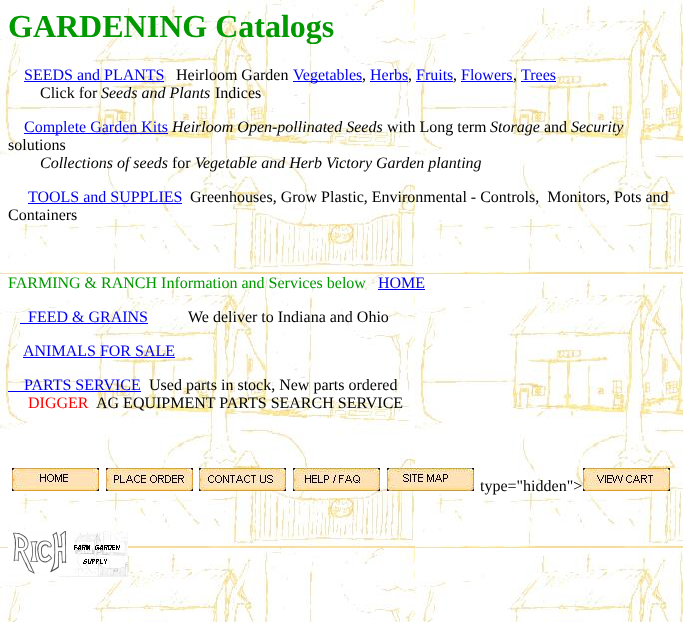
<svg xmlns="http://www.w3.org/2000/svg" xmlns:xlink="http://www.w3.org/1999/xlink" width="683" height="622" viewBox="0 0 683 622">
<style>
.cls-1{font:bold 32px Liberation Serif;fill:#009900}
.cls-2{font:16px Liberation Serif;fill:#0000ee}
.cls-3{font:16px Liberation Serif;fill:#000000}
.cls-4{font:italic 16px Liberation Serif;fill:#000000}
.cls-5{font:16px Liberation Serif;fill:#009900}
.cls-6{font:16px Liberation Serif;fill:#ff0000}
</style>
<rect width="100%" height="100%" fill="#ffffff"/>
<image xlink:href="image0.png" x="0" y="0" width="683" height="622"/>
<rect fill="#0000ee" x="24" y="81" width="140" height="1"/>
<rect fill="#0000ee" x="293" y="81" width="69" height="1"/>
<rect fill="#0000ee" x="370" y="81" width="38" height="1"/>
<rect fill="#0000ee" x="416" y="81" width="37" height="1"/>
<rect fill="#0000ee" x="461" y="81" width="52" height="1"/>
<rect fill="#0000ee" x="521" y="81" width="35" height="1"/>
<rect fill="#0000ee" x="24" y="133" width="144" height="1"/>
<rect fill="#0000ee" x="28" y="203" width="154" height="1"/>
<rect fill="#0000ee" x="378" y="289" width="47" height="1"/>
<rect fill="#0000ee" x="20" y="323" width="128" height="1"/>
<rect fill="#0000ee" x="23" y="357" width="152" height="1"/>
<rect fill="#0000ee" x="8" y="391" width="133" height="1"/>
<image xlink:href="image1.png" x="12" y="468" width="87" height="23"/>
<image xlink:href="image2.png" x="106" y="468" width="87" height="23"/>
<image xlink:href="image3.png" x="199" y="468" width="87" height="23"/>
<image xlink:href="image4.png" x="293" y="468" width="87" height="23"/>
<image xlink:href="image5.png" x="387" y="468" width="87" height="23"/>
<image xlink:href="image6.png" x="583" y="468" width="87" height="23"/>
<image xlink:href="image7.png" x="8" y="531" width="120" height="46"/>
<text class="cls-1" x="8" y="37">GARDENING Catalogs</text>
<text class="cls-2" x="24" y="80">SEEDS and PLANTS</text>
<text class="cls-3" x="176" y="80">Heirloom Garden</text>
<text class="cls-2" x="293" y="80">Vegetables</text>
<text class="cls-3" x="362" y="80">,</text>
<text class="cls-2" x="370" y="80">Herbs</text>
<text class="cls-3" x="408" y="80">,</text>
<text class="cls-2" x="416" y="80">Fruits</text>
<text class="cls-3" x="453" y="80">,</text>
<text class="cls-2" x="461" y="80">Flowers</text>
<text class="cls-3" x="513" y="80">,</text>
<text class="cls-2" x="521" y="80">Trees</text>
<text class="cls-3" x="40" y="98">Click for</text>
<text class="cls-4" x="101" y="98">Seeds and Plants</text>
<text class="cls-3" x="215" y="98">Indices</text>
<text class="cls-2" x="24" y="132">Complete Garden Kits</text>
<text class="cls-4" x="172" y="132">Heirloom Open-pollinated Seeds</text>
<text class="cls-3" x="387" y="132">with Long term</text>
<text class="cls-4" x="490" y="132">Storage</text>
<text class="cls-3" x="544" y="132">and</text>
<text class="cls-4" x="571" y="132">Security</text>
<text class="cls-3" x="8" y="150">solutions</text>
<text class="cls-4" x="40" y="168">Collections of seeds</text>
<text class="cls-3" x="172" y="168">for</text>
<text class="cls-4" x="195" y="168">Vegetable and Herb Victory Garden planting</text>
<text class="cls-2" x="28" y="202">TOOLS and SUPPLIES</text>
<text class="cls-3" xml:space="preserve" x="190" y="202">Greenhouses, Grow Plastic, Environmental - Controls,  Monitors, Pots and</text>
<text class="cls-3" x="8" y="220">Containers</text>
<text class="cls-5" x="8" y="288">FARMING &amp; RANCH Information and Services below</text>
<text class="cls-2" x="378" y="288">HOME</text>
<text class="cls-2" x="28" y="322">FEED &amp; GRAINS</text>
<text class="cls-3" x="188" y="322">We deliver to Indiana and Ohio</text>
<text class="cls-2" x="23" y="356">ANIMALS FOR SALE</text>
<text class="cls-2" x="24" y="390">PARTS SERVICE</text>
<text class="cls-3" x="149" y="390">Used parts in stock, New parts ordered</text>
<text class="cls-6" x="28" y="408">DIGGER</text>
<text class="cls-3" x="96" y="408">AG EQUIPMENT PARTS SEARCH SERVICE</text>
<text class="cls-3" x="480" y="491">type="hidden"&gt;</text>
</svg>
